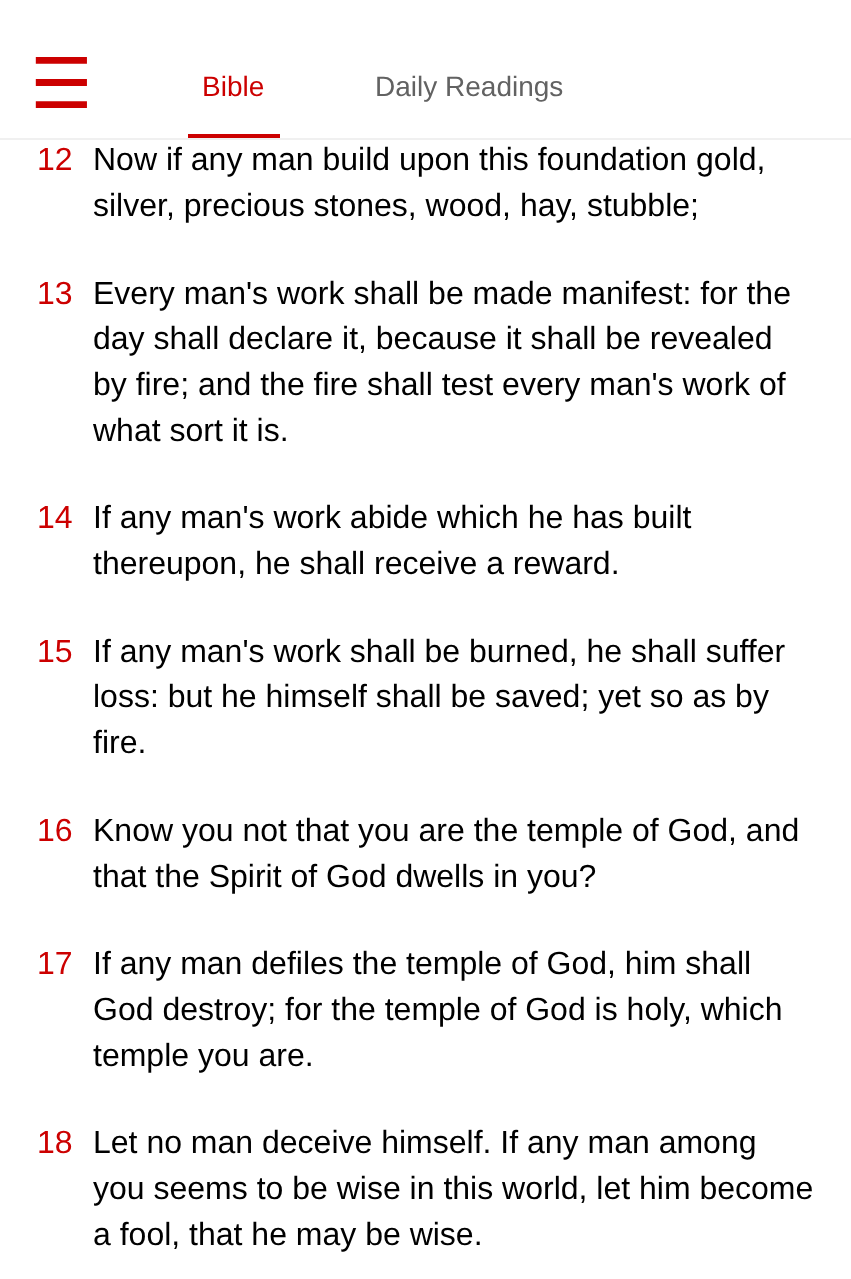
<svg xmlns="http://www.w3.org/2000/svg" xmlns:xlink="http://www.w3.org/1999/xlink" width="851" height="1279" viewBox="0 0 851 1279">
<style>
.cls-1{font:70px DejaVu Sans;fill:#cc0000}
.cls-2{font:32px Liberation Sans;fill:#cc0000}
.cls-3{font:32px Liberation Sans;fill:#000000}
.cls-4{font:28px Liberation Sans;fill:#cc0000}
.cls-5{font:28px Liberation Sans;fill:#626262}
</style>
<rect width="100%" height="100%" fill="#ffffff"/>
<rect fill="#f0f0f0" x="0" y="138" width="851" height="2"/>
<rect fill="#cc0000" x="188" y="134" width="92" height="4"/>
<text class="cls-1" x="30" y="108">☰</text>
<text class="cls-2" x="37" y="170">12</text>
<text class="cls-3"><tspan x="93" y="170">Now if any man build upon this foundation gold,</tspan><tspan x="93" y="216">silver, precious stones, wood, hay, stubble;</tspan></text>
<text class="cls-2" x="37" y="304">13</text>
<text class="cls-3"><tspan x="93" y="304">Every man's work shall be made manifest: for the</tspan><tspan x="93" y="349">day shall declare it, because it shall be revealed</tspan><tspan x="93" y="395">by fire; and the fire shall test every man's work of</tspan><tspan x="93" y="441">what sort it is.</tspan></text>
<text class="cls-2" x="37" y="528">14</text>
<text class="cls-3"><tspan x="93" y="528">If any man's work abide which he has built</tspan><tspan x="93" y="574">thereupon, he shall receive a reward.</tspan></text>
<text class="cls-2" x="37" y="662">15</text>
<text class="cls-3"><tspan x="93" y="662">If any man's work shall be burned, he shall suffer</tspan><tspan x="93" y="707">loss: but he himself shall be saved; yet so as by</tspan><tspan x="93" y="753">fire.</tspan></text>
<text class="cls-2" x="37" y="841">16</text>
<text class="cls-3"><tspan x="93" y="841">Know you not that you are the temple of God, and</tspan><tspan x="93" y="887">that the Spirit of God dwells in you?</tspan></text>
<text class="cls-2" x="37" y="974">17</text>
<text class="cls-3"><tspan x="93" y="974">If any man defiles the temple of God, him shall</tspan><tspan x="93" y="1020">God destroy; for the temple of God is holy, which</tspan><tspan x="93" y="1066">temple you are.</tspan></text>
<text class="cls-2" x="37" y="1153">18</text>
<text class="cls-3"><tspan x="93" y="1153">Let no man deceive himself. If any man among</tspan><tspan x="93" y="1199">you seems to be wise in this world, let him become</tspan><tspan x="93" y="1245">a fool, that he may be wise.</tspan></text>
<text class="cls-4" x="202" y="96">Bible</text>
<text class="cls-5" x="375" y="96">Daily Readings</text>
</svg>
